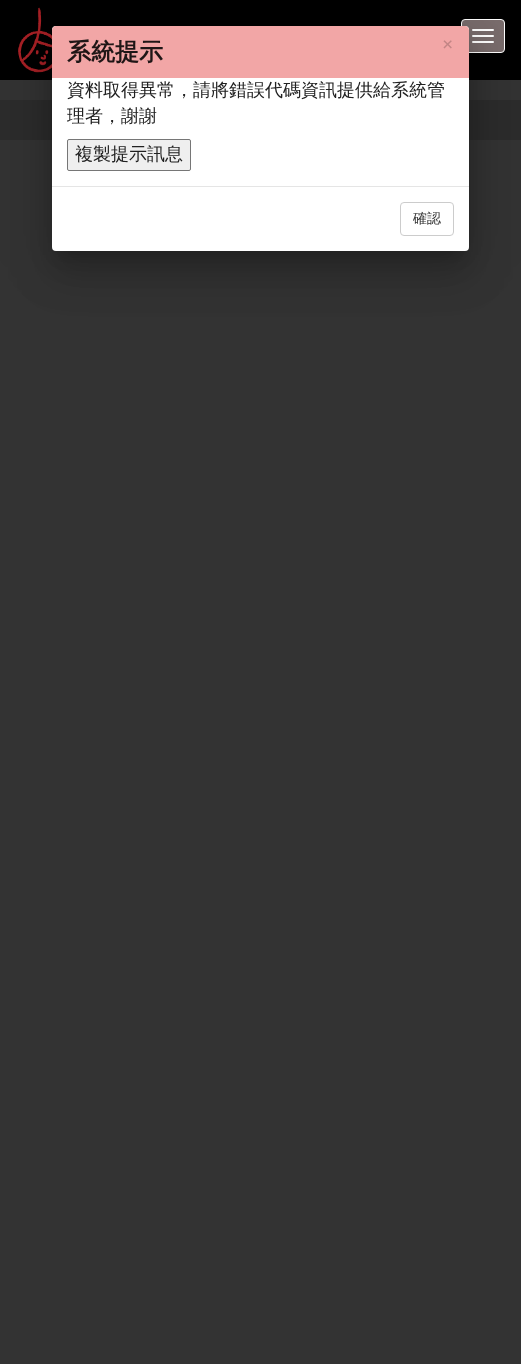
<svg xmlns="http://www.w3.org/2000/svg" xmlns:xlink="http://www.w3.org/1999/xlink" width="521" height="1364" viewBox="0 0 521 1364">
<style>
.cls-1{font:bold 24px WenQuanYi Zen Hei;fill:#1f1616}
.cls-2{font:bold 20px Liberation Serif;fill:#c28585}
.cls-3{font:500 18px WenQuanYi Zen Hei;fill:#212121}
.cls-4{font:500 14px WenQuanYi Zen Hei;fill:#333333}
</style>
<rect width="100%" height="100%" fill="#333333"/>
<rect fill="#000000" x="0" y="0" width="521" height="80"/>
<rect fill="#796c6c" stroke="#ffffff" x="461.5" y="19.5" width="43" height="33" rx="3.5"/>
<rect fill="#ffffff" x="472" y="29" width="22" height="2" rx="1"/>
<rect fill="#ffffff" x="472" y="35" width="22" height="2" rx="1"/>
<rect fill="#ffffff" x="472" y="41" width="22" height="2" rx="1"/>
<image xlink:href="image0.png" x="18" y="7" width="34" height="66"/>
<rect fill="#2c2c2c" x="0" y="100" width="521" height="40"/>
<rect fill="#000000" fill-opacity="0.12" filter="blur(23px)" x="44" y="27" width="433" height="241" rx="12"/>
<rect fill="#000000" fill-opacity="0.14" filter="blur(19px)" x="49" y="47" width="423" height="231" rx="7"/>
<rect fill="#000000" fill-opacity="0.2" filter="blur(7.5px)" x="59" y="44" width="403" height="211"/>
<rect fill="#ffffff" x="52" y="26" width="417" height="225" rx="4"/>
<path fill="#f2a6a6" d="M56 26H465C467 26 469 28 469 30V78H52V30C52 28 54 26 56 26Z"/>
<rect fill="#efefef" stroke="#767676" x="67.5" y="139.5" width="123" height="31" rx="1.5"/>
<rect fill="#e5e5e5" x="52" y="186" width="417" height="1"/>
<rect fill="none" stroke="#cccccc" x="400.5" y="202.5" width="53" height="33" rx="3.5"/>
<text class="cls-1" x="67" y="60">系統提示</text>
<text class="cls-2" x="442" y="51">×</text>
<text class="cls-3"><tspan x="67" y="96">資料取得異常，請將錯誤代碼資訊提供給系統管</tspan><tspan x="67" y="122">理者，謝謝</tspan></text>
<text class="cls-3" x="75" y="160">複製提示訊息</text>
<text class="cls-4" x="413" y="223">確認</text>
</svg>
